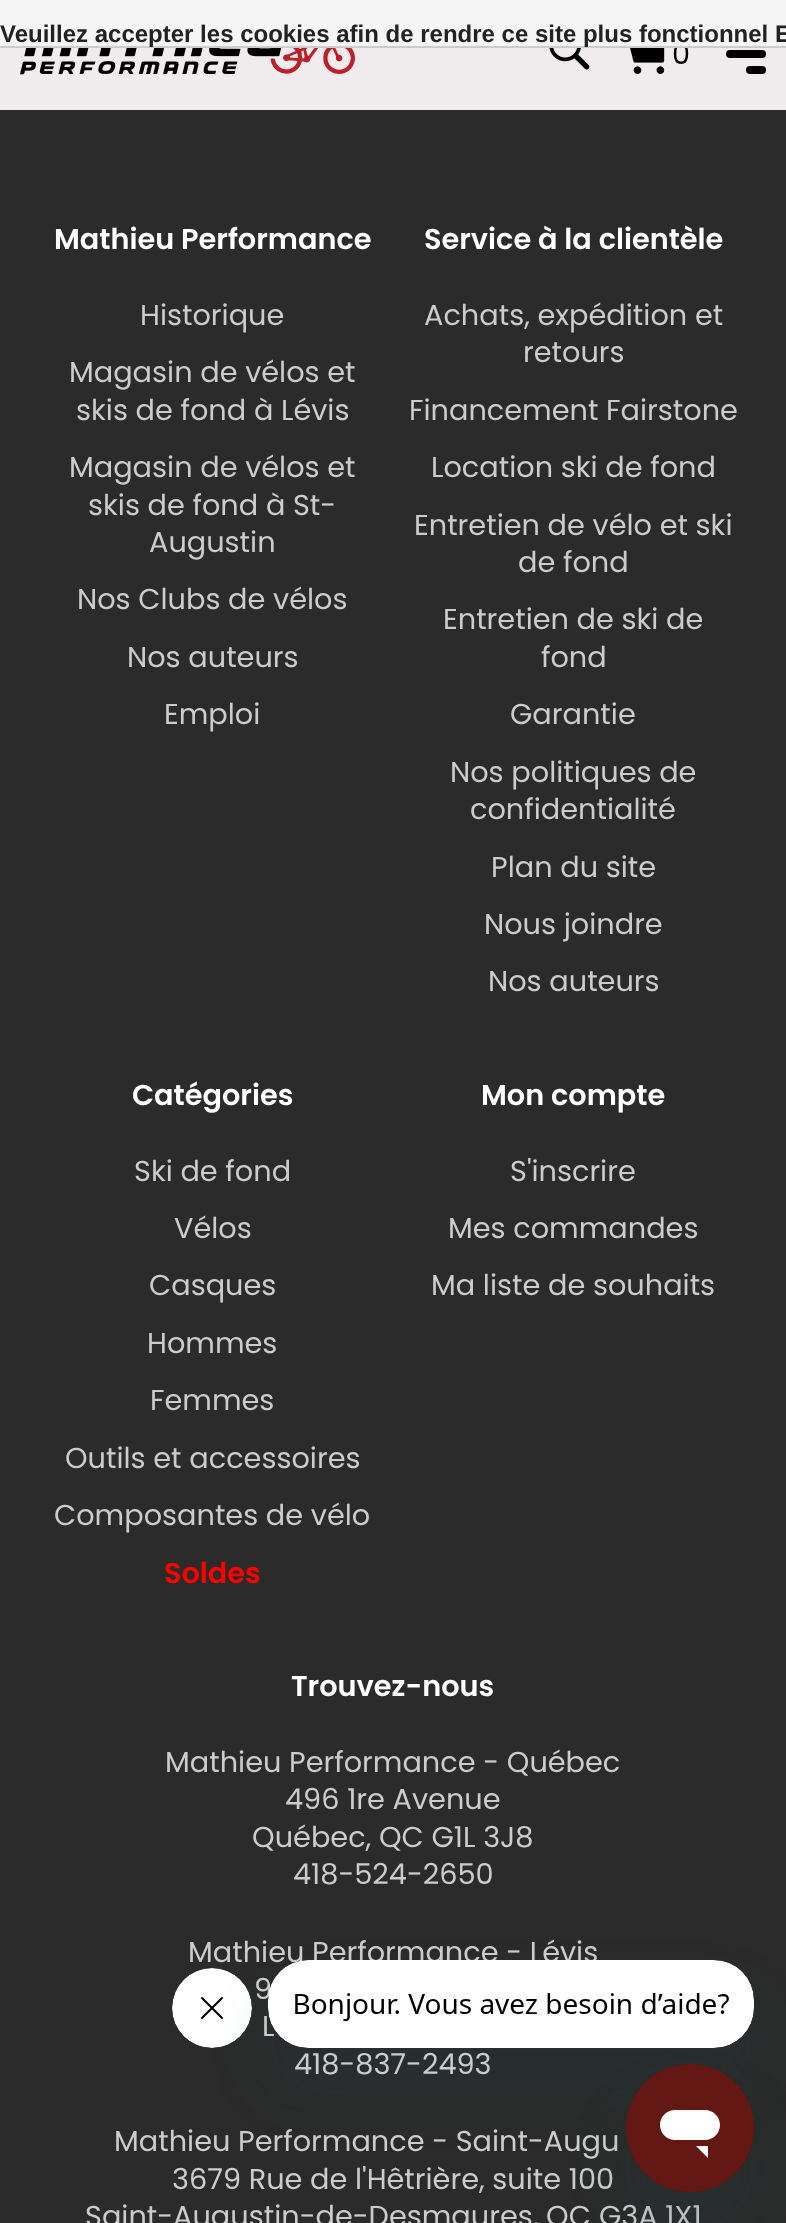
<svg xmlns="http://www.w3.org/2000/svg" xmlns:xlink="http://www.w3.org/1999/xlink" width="786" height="2223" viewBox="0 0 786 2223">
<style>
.cls-1{font:28.75px Poppins;fill:#000000}
.cls-2{font:bold 24px Liberation Sans;fill:#222222}
.cls-3{font:600 28.75px Poppins;fill:#ffffff}
.cls-4{font:28.75px Poppins;fill:#cccccc}
.cls-5{font:600 28.75px Poppins;fill:#ff0000}
</style>
<rect width="100%" height="100%" fill="#2b2b2b"/>
<rect fill="#f0eced" x="0" y="48" width="786" height="62"/>
<image xlink:href="image0.png" x="20" y="48" width="335" height="27"/>
<image xlink:href="image1.png" x="549" y="48" width="41" height="22"/>
<image xlink:href="image2.png" x="630" y="48" width="35" height="26"/>
<rect fill="#000000" x="726" y="50" width="40" height="8" rx="4"/>
<rect fill="#000000" x="746" y="66" width="20" height="8" rx="4"/>
<image xlink:href="image4.png" x="172" y="1968" width="80" height="80"/>
<rect fill="#17494d" fill-opacity="0.15" filter="blur(30px)" x="268" y="2000" width="486" height="88" rx="40"/>
<text class="cls-1" x="672" y="64">0</text>
<rect fill="#cccccc" x="0" y="46" width="786" height="2"/>
<rect fill="#f5f5f5" x="0" y="0" width="786" height="46"/>
<text class="cls-2" x="0" y="42">Veuillez accepter les cookies afin de rendre ce site plus fonctionnel E</text>
<text class="cls-3" x="54" y="249">Mathieu Performance</text>
<text class="cls-4" x="140" y="325">Historique</text>
<text class="cls-4" x="69" y="382">Magasin de vélos et</text>
<text class="cls-4" x="76" y="420">skis de fond à Lévis</text>
<text class="cls-4" x="69" y="477">Magasin de vélos et</text>
<text class="cls-4" x="88" y="515">skis de fond à St-</text>
<text class="cls-4" x="149" y="552">Augustin</text>
<text class="cls-4" x="77" y="609">Nos Clubs de vélos</text>
<text class="cls-4" x="127" y="667">Nos auteurs</text>
<text class="cls-4" x="164" y="724">Emploi</text>
<text class="cls-3" x="424" y="249">Service à la clientèle</text>
<text class="cls-4" x="424" y="325">Achats, expédition et</text>
<text class="cls-4" x="523" y="362">retours</text>
<text class="cls-4" x="409" y="420">Financement Fairstone</text>
<text class="cls-4" x="431" y="477">Location ski de fond</text>
<text class="cls-4" x="414" y="535">Entretien de vélo et ski</text>
<text class="cls-4" x="518" y="572">de fond</text>
<text class="cls-4" x="443" y="629">Entretien de ski de</text>
<text class="cls-4" x="541" y="667">fond</text>
<text class="cls-4" x="510" y="724">Garantie</text>
<text class="cls-4" x="450" y="782">Nos politiques de</text>
<text class="cls-4" x="470" y="819">confidentialité</text>
<text class="cls-4" x="491" y="877">Plan du site</text>
<text class="cls-4" x="484" y="934">Nous joindre</text>
<text class="cls-4" x="488" y="991">Nos auteurs</text>
<text class="cls-3" x="132" y="1105">Catégories</text>
<text class="cls-4" x="134" y="1181">Ski de fond</text>
<text class="cls-4" x="174" y="1238">Vélos</text>
<text class="cls-4" x="149" y="1295">Casques</text>
<text class="cls-4" x="147" y="1353">Hommes</text>
<text class="cls-4" x="150" y="1410">Femmes</text>
<text class="cls-4" x="65" y="1468">Outils et accessoires</text>
<text class="cls-4" x="54" y="1525">Composantes de vélo</text>
<text class="cls-5" x="164" y="1583">Soldes</text>
<text class="cls-3" x="481" y="1105">Mon compte</text>
<text class="cls-4" x="510" y="1181">S'inscrire</text>
<text class="cls-4" x="448" y="1238">Mes commandes</text>
<text class="cls-4" x="431" y="1295">Ma liste de souhaits</text>
<text class="cls-3" x="291" y="1696">Trouvez-nous</text>
<text class="cls-4" x="165" y="1772">Mathieu Performance - Québec</text>
<text class="cls-4" x="285" y="1809">496 1re Avenue</text>
<text class="cls-4" x="252" y="1847">Québec, QC G1L 3J8</text>
<text class="cls-4" x="293" y="1884">418-524-2650</text>
<text class="cls-4" x="188" y="1962">Mathieu Performance - Lévis</text>
<text class="cls-4" x="254" y="1999">9</text>
<text class="cls-4" x="262" y="2036">L</text>
<text class="cls-4" x="294" y="2074">418-837-2493</text>
<text class="cls-4" x="114" y="2151">Mathieu Performance - Saint-Augu</text>
<text class="cls-4" x="172" y="2189">3679 Rue de l'Hêtrière, suite 100</text>
<text class="cls-4" x="85" y="2226">Saint-Augustin-de-Desmaures, QC</text>
<text class="cls-4" x="599" y="2226">G3A 1X1</text>
<image xlink:href="image3.png" x="268" y="1960" width="486" height="88"/>
<rect fill="#17494d" fill-opacity="0.15" filter="blur(30px)" x="626" y="2104" width="128" height="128" rx="64"/>
<image xlink:href="image5.png" x="626" y="2064" width="128" height="128"/>
</svg>
